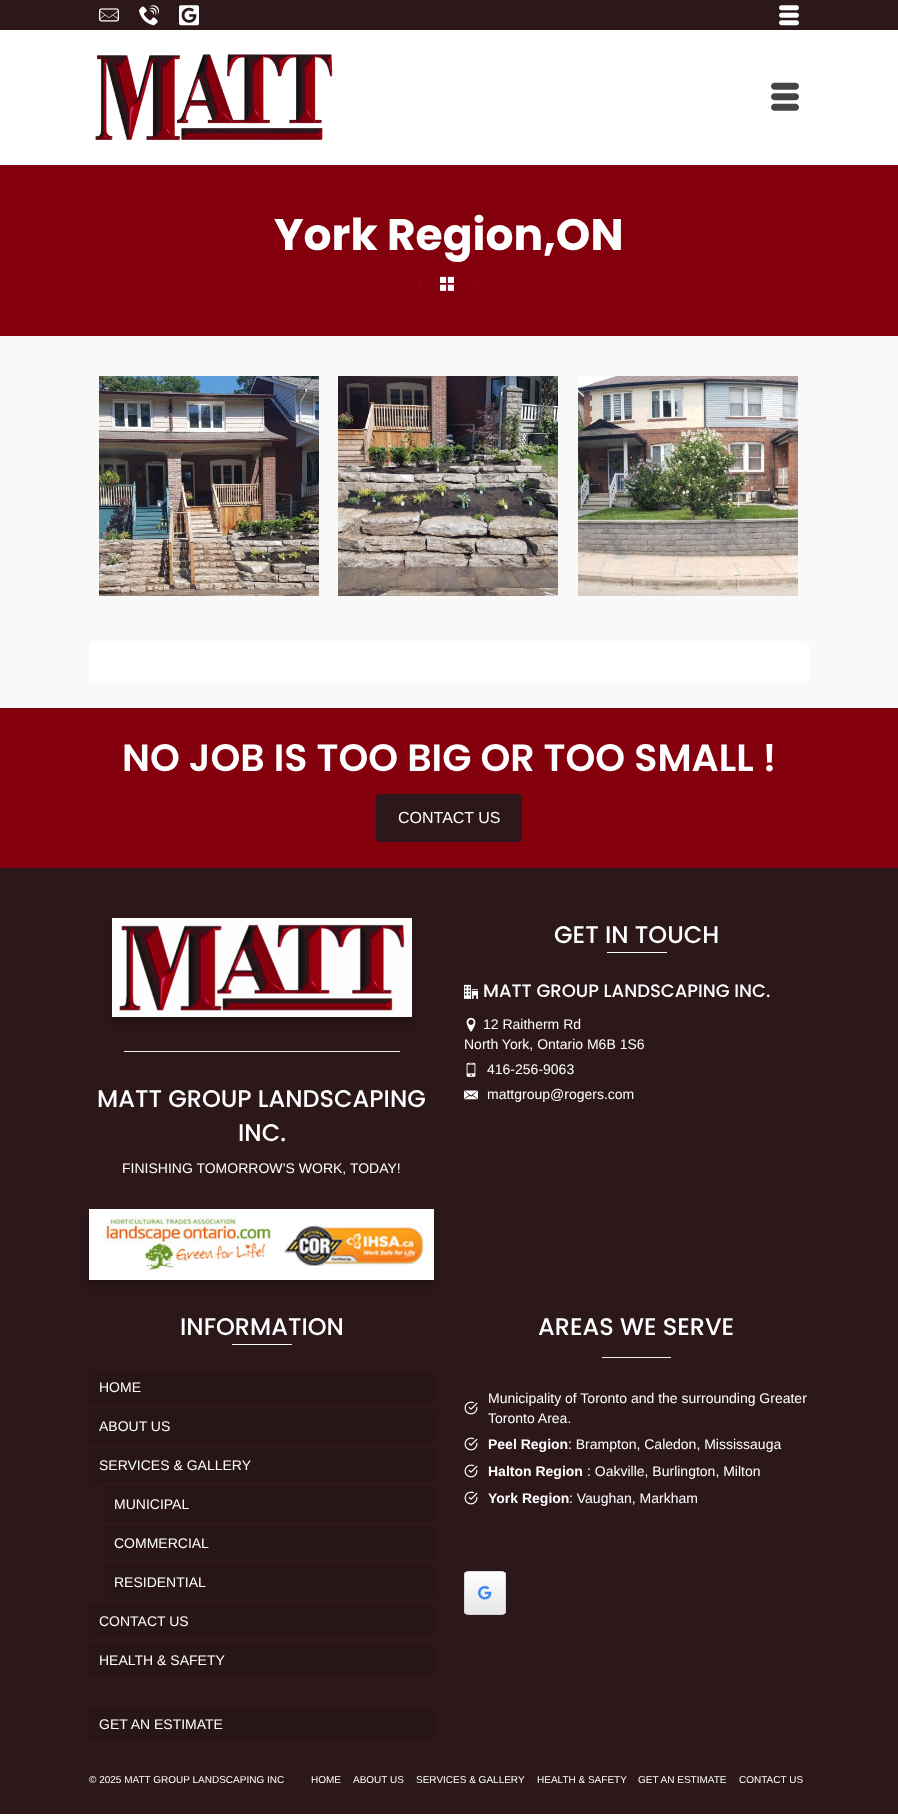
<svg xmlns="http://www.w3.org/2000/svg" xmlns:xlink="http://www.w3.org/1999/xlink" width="898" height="1819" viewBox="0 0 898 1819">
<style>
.cls-1{font:bold 44px Poppins;fill:#ffffff}
.cls-2{font:600 38px Poppins;fill:#ffffff}
.cls-3{font:16px Liberation Sans;fill:#ffffff}
.cls-4{font:500 24px Poppins;fill:#ffffff}
.cls-5{font:500 18px Poppins;fill:#ffffff}
.cls-6{font:14px Liberation Sans;fill:#ffffff}
.cls-7{font:bold 14px Liberation Sans;fill:#ffffff}
.cls-8{font:10px Liberation Sans;fill:#ffffff}
</style>
<defs>
<clipPath id="clip1"><rect x="464" y="1571" width="42" height="44" rx="4"/></clipPath>
<linearGradient id="g1" gradientUnits="userSpaceOnUse" x1="465" y1="1614" x2="465" y2="1572"><stop offset="0" stop-color="#e6e6e6"/><stop offset="1" stop-color="#ffffff"/></linearGradient>
</defs>
<rect width="100%" height="100%" fill="#ffffff"/>
<rect fill="#2c181a" x="0" y="0" width="898" height="30"/>
<image xlink:href="image0.png" x="99" y="8" width="20" height="14"/>
<image xlink:href="image1.png" x="139" y="5" width="20" height="21"/>
<image xlink:href="image2.png" x="179" y="5" width="20" height="21"/>
<image xlink:href="image3.png" x="779" y="5" width="20" height="21"/>
<image xlink:href="image4.png" x="95" y="54" width="238" height="86"/>
<image xlink:href="image5.png" x="771" y="82" width="28" height="29"/>
<rect fill="#f9f9f9" x="0" y="336" width="898" height="372"/>
<rect fill="#84000d" x="0" y="165" width="898" height="171"/>
<image xlink:href="image6.png" x="418" y="278" width="6" height="12"/>
<image xlink:href="image7.png" x="440" y="276" width="14" height="15"/>
<image xlink:href="image8.png" x="474" y="278" width="6" height="12"/>
<image xlink:href="image9.png" x="99" y="376" width="220" height="220"/>
<image xlink:href="image10.png" x="338" y="376" width="220" height="220"/>
<image xlink:href="image11.png" x="578" y="376" width="220" height="220"/>
<rect fill="#ffffff" x="89" y="641" width="720" height="42" rx="5"/>
<rect fill="#84000d" x="0" y="708" width="898" height="160"/>
<rect fill="#2c181a" x="376" y="794" width="146" height="48" rx="4"/>
<rect fill="#2c181a" x="0" y="868" width="898" height="946"/>
<rect fill="#ffffff" x="607" y="952" width="60" height="1"/>
<image xlink:href="image12.png" x="464" y="984" width="14" height="15"/>
<image xlink:href="image13.png" x="466" y="1017" width="10" height="15"/>
<image xlink:href="image14.png" x="466" y="1062" width="10" height="15"/>
<image xlink:href="image15.png" x="464" y="1090" width="14" height="10"/>
<rect fill="#000000" fill-opacity="0.23" filter="blur(3px)" x="112" y="924" width="300" height="99"/>
<image xlink:href="image16.png" x="112" y="918" width="300" height="99"/>
<rect fill="#eeeeee" x="124" y="1051" width="276" height="1"/>
<rect fill="#000000" fill-opacity="0.23" filter="blur(3px)" x="89" y="1215" width="345" height="71"/>
<image xlink:href="image17.png" x="89" y="1209" width="345" height="71"/>
<rect fill="#ffffff" x="232" y="1344" width="60" height="1"/>
<rect fill="#281617" x="89" y="1370" width="345" height="34"/>
<rect fill="#281617" x="89" y="1409" width="345" height="34"/>
<rect fill="#281617" x="89" y="1448" width="345" height="34"/>
<rect fill="#281617" x="104" y="1487" width="330" height="34"/>
<rect fill="#281617" x="104" y="1526" width="330" height="34"/>
<rect fill="#281617" x="104" y="1565" width="330" height="34"/>
<rect fill="#281617" x="89" y="1604" width="345" height="34"/>
<rect fill="#281617" x="89" y="1643" width="345" height="34"/>
<rect fill="#281617" x="89" y="1707" width="345" height="34"/>
<rect fill="#eeeeee" x="602" y="1357" width="69" height="1"/>
<image xlink:href="image18.png" x="464" y="1401" width="14" height="14"/>
<image xlink:href="image18.png" x="464" y="1437" width="14" height="14"/>
<image xlink:href="image18.png" x="464" y="1464" width="14" height="14"/>
<image xlink:href="image18.png" x="464" y="1491" width="14" height="14"/>
<g clip-path="url(#clip1)">
<rect fill="url(#g1)" x="464" y="1572" width="42" height="42"/>
</g>
<path fill="#ffffff" d="M468 1573H502C504 1573 505 1574 505 1576C505 1571 502 1572 497 1572H473C468 1572 465 1571 465 1576C465 1574 466 1573 468 1573Z"/>
<path fill="none" stroke="#dedede" d="M465.5 1572.5C466 1572 466.5 1571.5 467.5 1571.5H502.5C503.5 1571.5 504 1572 504.5 1572.5"/>
<path fill="none" stroke="#d9d9d9" d="M504.5 1572.5L505.5 1574.5V1611.5L504.5 1613.5"/>
<path fill="none" stroke="#d1d1d1" d="M504.5 1613.5C504 1614 503.5 1614.5 502.5 1614.5H467.5C466.5 1614.5 466 1614 465.5 1613.5"/>
<path fill="none" stroke="#d9d9d9" d="M465.5 1613.5L464.5 1611.5V1574.5L465.5 1572.5"/>
<image xlink:href="image19.png" x="478" y="1586" width="14" height="14"/>
<text class="cls-1" x="274" y="250">York Region,ON</text>
<text class="cls-2" x="122" y="771">NO JOB IS TOO BIG OR TOO SMALL !</text>
<text class="cls-3" x="398" y="823">CONTACT US</text>
<text class="cls-4" x="554" y="943">GET IN TOUCH</text>
<text class="cls-5" x="483" y="997">MATT GROUP LANDSCAPING INC.</text>
<text class="cls-6" x="483" y="1029">12 Raitherm Rd</text>
<text class="cls-6" x="464" y="1049">North York, Ontario M6B 1S6</text>
<text class="cls-6"><tspan x="487" y="1074">416-256-9063</tspan><tspan x="487" y="1099">mattgroup@rogers.com</tspan></text>
<text class="cls-4" x="97" y="1107">MATT GROUP LANDSCAPING</text>
<text class="cls-4" x="238" y="1141">INC.</text>
<text class="cls-6" x="122" y="1173">FINISHING TOMORROW’S WORK, TODAY!</text>
<text class="cls-4" x="180" y="1335">INFORMATION</text>
<text class="cls-6" x="99" y="1392">HOME</text>
<text class="cls-6" x="99" y="1431">ABOUT US</text>
<text class="cls-6" x="99" y="1470">SERVICES &amp; GALLERY</text>
<text class="cls-6" x="114" y="1509">MUNICIPAL</text>
<text class="cls-6" x="114" y="1548">COMMERCIAL</text>
<text class="cls-6" x="114" y="1587">RESIDENTIAL</text>
<text class="cls-6" x="99" y="1626">CONTACT US</text>
<text class="cls-6" x="99" y="1665">HEALTH &amp; SAFETY</text>
<text class="cls-6" x="99" y="1729">GET AN ESTIMATE</text>
<text class="cls-4" x="538" y="1335">AREAS WE SERVE</text>
<text class="cls-6"><tspan x="488" y="1403">Municipality of Toronto and the surrounding Greater</tspan><tspan x="488" y="1423">Toronto Area.</tspan></text>
<text class="cls-7" x="488" y="1449">Peel Region</text>
<text class="cls-6" x="568" y="1449">: Brampton, Caledon, Mississauga</text>
<text class="cls-7" x="488" y="1476">Halton Region</text>
<text class="cls-6" x="587" y="1476">: Oakville, Burlington, Milton</text>
<text class="cls-7" x="488" y="1503">York Region</text>
<text class="cls-6" x="569" y="1503">: Vaughan, Markham</text>
<text class="cls-8" x="89" y="1783">© 2025 MATT GROUP LANDSCAPING INC</text>
<text class="cls-8" x="311" y="1783">HOME</text>
<text class="cls-8" x="353" y="1783">ABOUT US</text>
<text class="cls-8" x="416" y="1783">SERVICES &amp; GALLERY</text>
<text class="cls-8" x="537" y="1783">HEALTH &amp; SAFETY</text>
<text class="cls-8" x="638" y="1783">GET AN ESTIMATE</text>
<text class="cls-8" x="739" y="1783">CONTACT US</text>
</svg>
